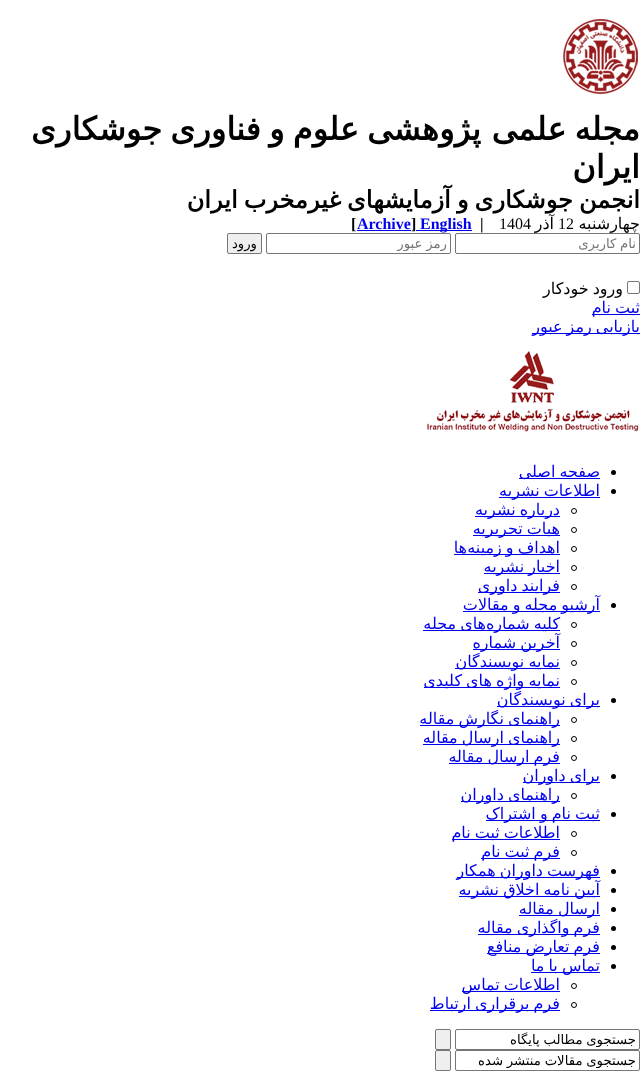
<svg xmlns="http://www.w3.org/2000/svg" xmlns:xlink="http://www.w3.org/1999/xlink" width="640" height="1077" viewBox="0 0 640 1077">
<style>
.cls-1{font:bold 32px DejaVu Sans;direction:rtl;fill:#000000}
.cls-2{font:bold 24px DejaVu Sans;direction:rtl;fill:#000000}
.cls-3{font:16px DejaVu Sans;direction:rtl;fill:#000000}
.cls-4{font:16px Liberation Serif;fill:#000000}
.cls-5{font:bold 16px Liberation Serif;fill:#000000}
.cls-6{font:bold 16px Liberation Serif;fill:#0000ee}
.cls-7{font:13.25px DejaVu Sans;direction:rtl;fill:#757575}
.cls-8{font:13.25px DejaVu Sans;direction:rtl;fill:#000000}
.cls-9{font:16px DejaVu Sans;direction:rtl;fill:#0000ee}
</style>
<defs>
<clipPath id="clip1"><rect x="459" y="236" width="177" height="15"/></clipPath>
<clipPath id="clip2"><rect x="270" y="236" width="177" height="15"/></clipPath>
<clipPath id="clip3"><rect x="459" y="1032" width="177" height="15"/></clipPath>
<clipPath id="clip4"><rect x="459" y="1053" width="177" height="15"/></clipPath>
</defs>
<rect width="100%" height="100%" fill="#ffffff"/>
<image xlink:href="image0.png" x="563" y="19" width="75" height="75"/>
<rect fill="#0000ee" x="416" y="230" width="56" height="1"/>
<rect fill="#0000ee" x="357" y="230" width="54" height="1"/>
<rect fill="none" stroke="#767676" x="455.5" y="233.5" width="184" height="20" rx="1.5"/>
<rect fill="none" stroke="#767676" x="266.5" y="233.5" width="184" height="20" rx="1.5"/>
<rect fill="#efefef" stroke="#767676" x="227.5" y="233.5" width="34" height="20" rx="1.5"/>
<rect fill="none" stroke="#767676" x="627.5" y="281.5" width="12" height="12" rx="1.5"/>
<rect fill="#0000ee" x="592" y="314" width="48" height="1"/>
<rect fill="#0000ee" x="532" y="333" width="108" height="1"/>
<image xlink:href="image1.png" x="427" y="351" width="212" height="81"/>
<circle fill="#000000" cx="613.5" cy="472.5" r="2.5"/>
<rect fill="#0000ee" x="519" y="478" width="81" height="1"/>
<circle fill="#000000" cx="613.5" cy="491.5" r="2.5"/>
<rect fill="#0000ee" x="499" y="497" width="101" height="1"/>
<circle fill="none" stroke="#000000" cx="574" cy="511" r="2.5"/>
<rect fill="#0000ee" x="475" y="516" width="85" height="1"/>
<circle fill="none" stroke="#000000" cx="574" cy="530" r="2.5"/>
<rect fill="#0000ee" x="473" y="535" width="87" height="1"/>
<circle fill="none" stroke="#000000" cx="574" cy="549" r="2.5"/>
<rect fill="#0000ee" x="454" y="554" width="106" height="1"/>
<circle fill="none" stroke="#000000" cx="574" cy="568" r="2.5"/>
<rect fill="#0000ee" x="484" y="573" width="76" height="1"/>
<circle fill="none" stroke="#000000" cx="574" cy="587" r="2.5"/>
<rect fill="#0000ee" x="478" y="592" width="82" height="1"/>
<circle fill="#000000" cx="613.5" cy="605.5" r="2.5"/>
<rect fill="#0000ee" x="463" y="611" width="137" height="1"/>
<circle fill="none" stroke="#000000" cx="574" cy="625" r="2.5"/>
<rect fill="#0000ee" x="423" y="630" width="137" height="1"/>
<circle fill="none" stroke="#000000" cx="574" cy="644" r="2.5"/>
<rect fill="#0000ee" x="473" y="649" width="87" height="1"/>
<circle fill="none" stroke="#000000" cx="574" cy="663" r="2.5"/>
<rect fill="#0000ee" x="455" y="668" width="105" height="1"/>
<circle fill="none" stroke="#000000" cx="574" cy="682" r="2.5"/>
<rect fill="#0000ee" x="424" y="687" width="136" height="1"/>
<circle fill="#000000" cx="613.5" cy="700.5" r="2.5"/>
<rect fill="#0000ee" x="497" y="706" width="103" height="1"/>
<circle fill="none" stroke="#000000" cx="574" cy="720" r="2.5"/>
<rect fill="#0000ee" x="420" y="725" width="140" height="1"/>
<circle fill="none" stroke="#000000" cx="574" cy="739" r="2.5"/>
<rect fill="#0000ee" x="423" y="744" width="137" height="1"/>
<circle fill="none" stroke="#000000" cx="574" cy="758" r="2.5"/>
<rect fill="#0000ee" x="449" y="763" width="111" height="1"/>
<circle fill="#000000" cx="613.5" cy="776.5" r="2.5"/>
<rect fill="#0000ee" x="523" y="782" width="77" height="1"/>
<circle fill="none" stroke="#000000" cx="574" cy="796" r="2.5"/>
<rect fill="#0000ee" x="461" y="801" width="99" height="1"/>
<circle fill="#000000" cx="613.5" cy="814.5" r="2.5"/>
<rect fill="#0000ee" x="486" y="820" width="114" height="1"/>
<circle fill="none" stroke="#000000" cx="574" cy="834" r="2.5"/>
<rect fill="#0000ee" x="452" y="839" width="108" height="1"/>
<circle fill="none" stroke="#000000" cx="574" cy="853" r="2.5"/>
<rect fill="#0000ee" x="481" y="858" width="79" height="1"/>
<circle fill="#000000" cx="613.5" cy="871.5" r="2.5"/>
<rect fill="#0000ee" x="457" y="877" width="143" height="1"/>
<circle fill="#000000" cx="613.5" cy="890.5" r="2.5"/>
<rect fill="#0000ee" x="459" y="896" width="141" height="1"/>
<circle fill="#000000" cx="613.5" cy="909.5" r="2.5"/>
<rect fill="#0000ee" x="519" y="915" width="81" height="1"/>
<circle fill="#000000" cx="613.5" cy="928.5" r="2.5"/>
<rect fill="#0000ee" x="478" y="934" width="122" height="1"/>
<circle fill="#000000" cx="613.5" cy="947.5" r="2.5"/>
<rect fill="#0000ee" x="487" y="953" width="113" height="1"/>
<circle fill="#000000" cx="613.5" cy="966.5" r="2.5"/>
<rect fill="#0000ee" x="531" y="972" width="69" height="1"/>
<circle fill="none" stroke="#000000" cx="574" cy="986" r="2.5"/>
<rect fill="#0000ee" x="462" y="991" width="98" height="1"/>
<circle fill="none" stroke="#000000" cx="574" cy="1005" r="2.5"/>
<rect fill="#0000ee" x="430" y="1010" width="130" height="1"/>
<rect fill="none" stroke="#767676" x="455.5" y="1029.5" width="184" height="20" rx="1.5"/>
<rect fill="#efefef" stroke="#767676" x="435.5" y="1029.5" width="15" height="20" rx="1.5"/>
<rect fill="none" stroke="#767676" x="455.5" y="1050.5" width="184" height="20" rx="1.5"/>
<rect fill="#efefef" stroke="#767676" x="435.5" y="1050.5" width="15" height="20" rx="1.5"/>
<text class="cls-1" x="640" y="140" word-spacing="-2">مجله علمی</text>
<text class="cls-1" x="481" y="140" word-spacing="-2">پژوهشی علوم و فناوری جوشکاری</text>
<text class="cls-1" x="640" y="178">ایران</text>
<text class="cls-2" x="640" y="208" word-spacing="-1.5">انجمن جوشکاری و آزمایشهای غیرمخرب ایران</text>
<text class="cls-3" x="640" y="229">چهارشنبه</text>
<text class="cls-4" x="558" y="229">12</text>
<text class="cls-3" x="554" y="229">آذر</text>
<text class="cls-4" x="499" y="229">1404</text>
<text class="cls-5" x="480" y="229">|</text>
<text class="cls-6" x="420" y="229">English</text>
<text class="cls-5" x="411" y="229">]</text>
<text class="cls-5" x="351" y="229">[</text>
<text class="cls-6" x="357" y="229">Archive</text>
<g clip-path="url(#clip1)">
<text class="cls-7" x="636" y="248" word-spacing="-0.5">نام کاربری</text>
</g>
<g clip-path="url(#clip2)">
<text class="cls-7" x="447" y="248" word-spacing="-0.5">رمز عبور</text>
</g>
<text class="cls-8" x="257" y="248">ورود</text>
<text class="cls-3" x="623" y="294" word-spacing="-1">ورود خودکار</text>
<text class="cls-9"><tspan x="640" y="313" word-spacing="-1">ثبت نام</tspan><tspan x="640" y="332" word-spacing="-1">بازیابی رمز عبور</tspan></text>
<text class="cls-9"><tspan x="600" y="477" word-spacing="-1">صفحه اصلی</tspan><tspan x="600" y="496" word-spacing="-1">اطلاعات نشریه</tspan></text>
<text class="cls-9"><tspan x="560" y="515" word-spacing="-1">درباره نشریه</tspan><tspan x="560" y="534" word-spacing="-1">هیات تحریریه</tspan><tspan x="560" y="553" word-spacing="-1">اهداف و زمینه</tspan></text>
<text class="cls-9" x="467" y="553">ها</text>
<text class="cls-9"><tspan x="560" y="572" word-spacing="-1">اخبار نشریه</tspan><tspan x="560" y="591" word-spacing="-1">فرایند داوری</tspan></text>
<text class="cls-9" x="600" y="610" word-spacing="-1">آرشیو مجله و مقالات</text>
<text class="cls-9" x="560" y="629" word-spacing="-1">کلیه شماره</text>
<text class="cls-9" x="486" y="629" word-spacing="-1">های مجله</text>
<text class="cls-9"><tspan x="560" y="648" word-spacing="-1">آخرین شماره</tspan><tspan x="560" y="667" word-spacing="-1">نمایه نویسندگان</tspan><tspan x="560" y="686" word-spacing="-1">نمایه واژه های کلیدی</tspan></text>
<text class="cls-9" x="600" y="705" word-spacing="-1">برای نویسندگان</text>
<text class="cls-9"><tspan x="560" y="724" word-spacing="-1">راهنمای نگارش مقاله</tspan><tspan x="560" y="743" word-spacing="-1">راهنمای ارسال مقاله</tspan><tspan x="560" y="762" word-spacing="-1">فرم ارسال مقاله</tspan></text>
<text class="cls-9" x="600" y="781" word-spacing="-1">برای داوران</text>
<text class="cls-9" x="560" y="800" word-spacing="-1">راهنمای داوران</text>
<text class="cls-9" x="600" y="819" word-spacing="-1">ثبت نام و اشتراک</text>
<text class="cls-9"><tspan x="560" y="838" word-spacing="-1">اطلاعات ثبت نام</tspan><tspan x="560" y="857" word-spacing="-1">فرم ثبت نام</tspan></text>
<text class="cls-9"><tspan x="600" y="876" word-spacing="-1">فهرست داوران همکار</tspan><tspan x="600" y="895" word-spacing="-1">آیین نامه اخلاق نشریه</tspan><tspan x="600" y="914" word-spacing="-1">ارسال مقاله</tspan><tspan x="600" y="933" word-spacing="-1">فرم واگذاری مقاله</tspan><tspan x="600" y="952" word-spacing="-1">فرم تعارض منافع</tspan><tspan x="600" y="971" word-spacing="-1">تماس با ما</tspan></text>
<text class="cls-9"><tspan x="560" y="990" word-spacing="-1">اطلاعات تماس</tspan><tspan x="560" y="1009" word-spacing="-1">فرم برقراری ارتباط</tspan></text>
<g clip-path="url(#clip3)">
<text class="cls-8" x="636" y="1044" word-spacing="-0.5">جستجوی مطالب پایگاه</text>
</g>
<g clip-path="url(#clip4)">
<text class="cls-8" x="636" y="1065" word-spacing="-0.5">جستجوی مقالات منتشر شده</text>
</g>
</svg>
